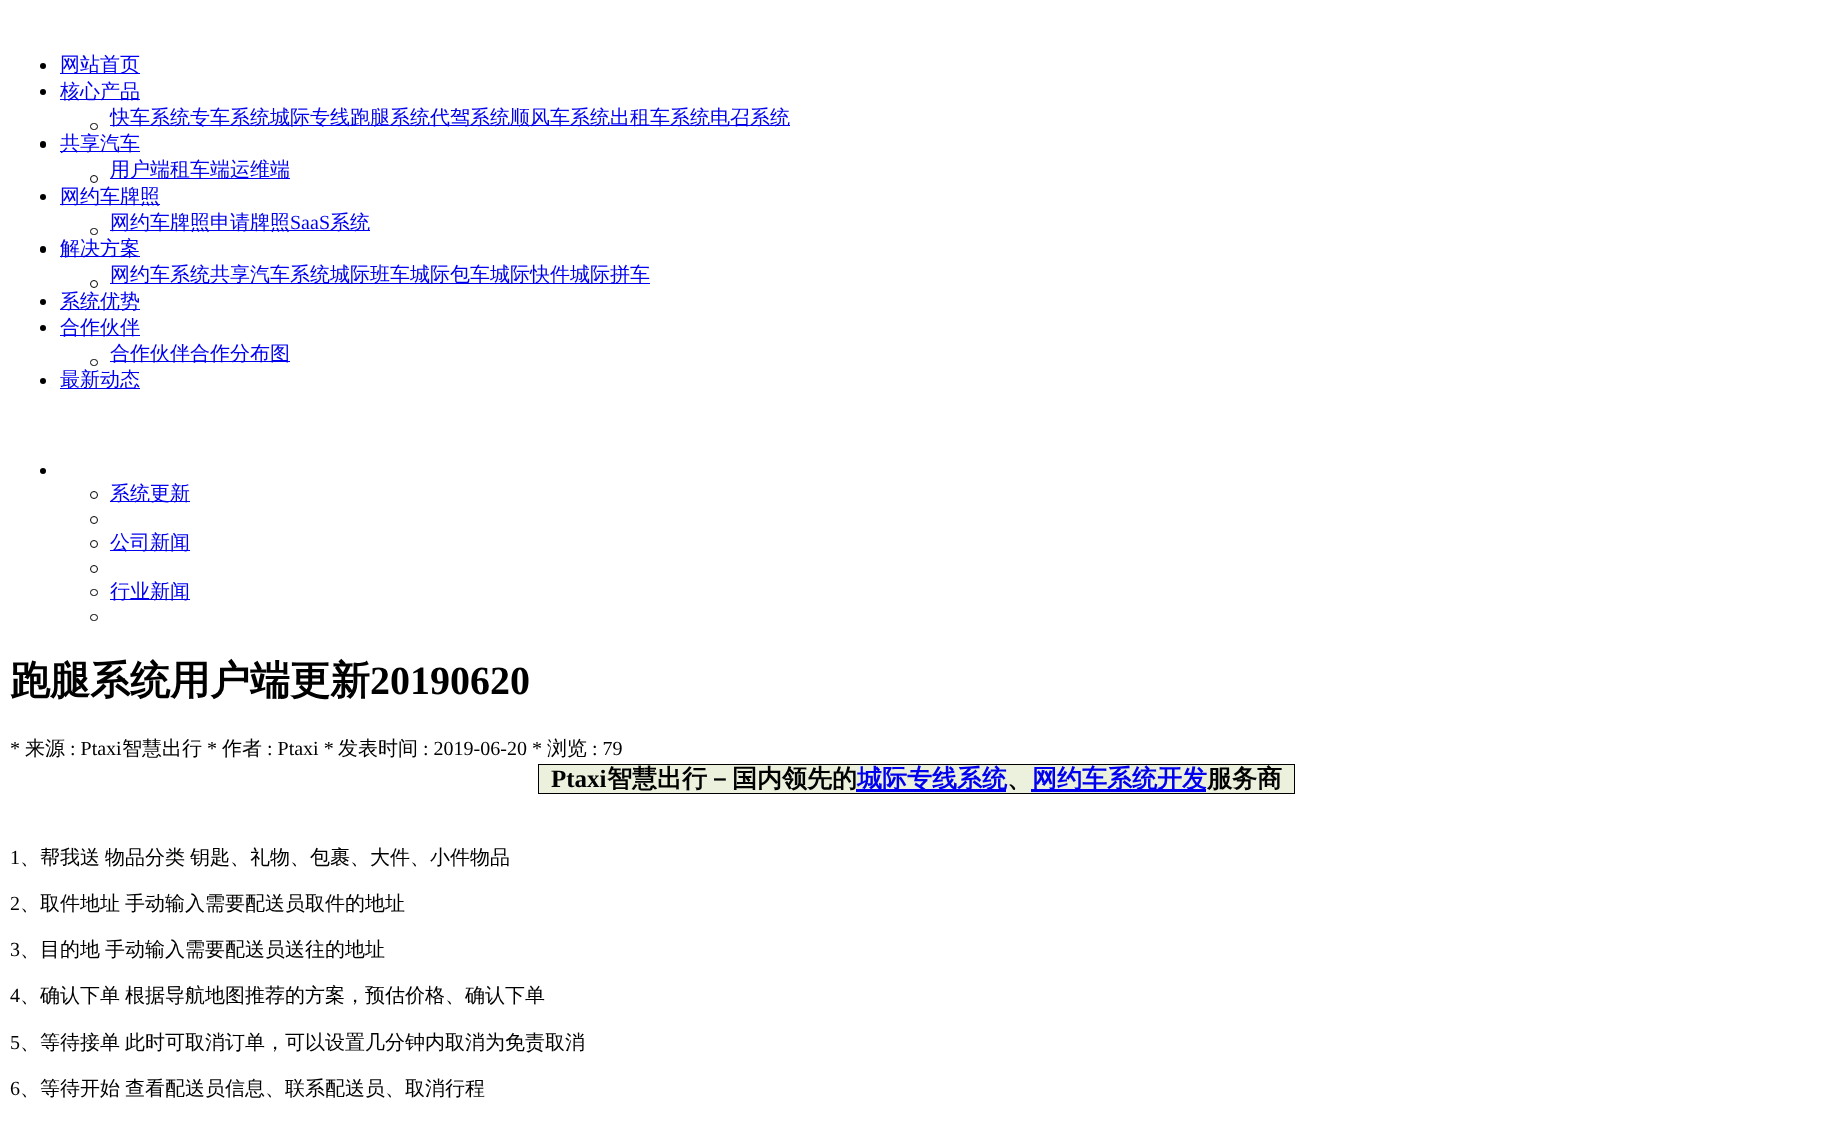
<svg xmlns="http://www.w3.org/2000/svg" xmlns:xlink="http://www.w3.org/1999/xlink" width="1832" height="1124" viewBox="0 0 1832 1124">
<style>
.cls-1{font:500 20px WenQuanYi Zen Hei;fill:#0000ee}
.cls-2{font:20px Liberation Serif;fill:#0000ee}
.cls-3{font:bold 40px WenQuanYi Zen Hei;fill:#000000}
.cls-4{font:bold 40px Liberation Serif;fill:#000000}
.cls-5{font:20px Liberation Serif;fill:#000000}
.cls-6{font:500 20px WenQuanYi Zen Hei;fill:#000000}
.cls-7{font:bold 25px Liberation Serif;fill:#000000}
.cls-8{font:bold 25px WenQuanYi Zen Hei;fill:#000000}
.cls-9{font:bold 25px WenQuanYi Zen Hei;fill:#0000ee}
</style>
<rect width="100%" height="100%" fill="#ffffff"/>
<circle fill="#000000" cx="43" cy="66" r="3"/>
<rect fill="#0000ee" x="60" y="73" width="80" height="1"/>
<circle fill="#000000" cx="43" cy="92" r="3"/>
<rect fill="#0000ee" x="60" y="99" width="80" height="1"/>
<rect fill="none" stroke="#000000" x="90.5" y="123.5" width="7" height="6" rx="3"/>
<rect fill="#0000ee" x="110" y="125" width="680" height="1"/>
<rect fill="#000000" x="40" y="141" width="6" height="7" rx="3"/>
<rect fill="#0000ee" x="60" y="151" width="80" height="1"/>
<circle fill="none" stroke="#000000" cx="94" cy="179" r="3.5"/>
<rect fill="#0000ee" x="110" y="178" width="180" height="1"/>
<circle fill="#000000" cx="43" cy="197" r="3"/>
<rect fill="#0000ee" x="60" y="204" width="100" height="1"/>
<rect fill="none" stroke="#000000" x="90.5" y="228.5" width="7" height="6" rx="3"/>
<rect fill="#0000ee" x="110" y="230" width="260" height="1"/>
<rect fill="#000000" x="40" y="246" width="6" height="7" rx="3"/>
<rect fill="#0000ee" x="60" y="256" width="80" height="1"/>
<circle fill="none" stroke="#000000" cx="94" cy="284" r="3.5"/>
<rect fill="#0000ee" x="110" y="283" width="540" height="1"/>
<circle fill="#000000" cx="43" cy="302" r="3"/>
<rect fill="#0000ee" x="60" y="309" width="80" height="1"/>
<circle fill="#000000" cx="43" cy="328" r="3"/>
<rect fill="#0000ee" x="60" y="335" width="80" height="1"/>
<rect fill="none" stroke="#000000" x="90.5" y="359.5" width="7" height="6" rx="3"/>
<rect fill="#0000ee" x="110" y="361" width="180" height="1"/>
<circle fill="#000000" cx="43" cy="381" r="3"/>
<rect fill="#0000ee" x="60" y="388" width="80" height="1"/>
<circle fill="#000000" cx="43" cy="471" r="3"/>
<circle fill="none" stroke="#000000" cx="94" cy="495" r="3.5"/>
<rect fill="#0000ee" x="110" y="501" width="80" height="1"/>
<circle fill="none" stroke="#000000" cx="94" cy="520" r="3.5"/>
<circle fill="none" stroke="#000000" cx="94" cy="544" r="3.5"/>
<rect fill="#0000ee" x="110" y="550" width="80" height="1"/>
<circle fill="none" stroke="#000000" cx="94" cy="569" r="3.5"/>
<rect fill="none" stroke="#000000" x="90.5" y="589.5" width="7" height="6" rx="3"/>
<rect fill="#0000ee" x="110" y="599" width="80" height="1"/>
<rect fill="none" stroke="#000000" x="90.5" y="614.5" width="7" height="6" rx="3"/>
<rect fill="#ebf1dd" x="539" y="765" width="755" height="28"/>
<rect fill="#000000" x="538" y="793" width="668" height="1"/>
<rect fill="#000000" x="538" y="764" width="757" height="1"/>
<rect fill="#000000" x="538" y="764" width="1" height="30"/>
<rect fill="#0000ee" x="856" y="789" width="150" height="3"/>
<rect fill="#0000ee" x="1031" y="789" width="175" height="3"/>
<rect fill="#000000" x="1294" y="764" width="1" height="30"/>
<rect fill="#000000" x="1206" y="793" width="89" height="1"/>
<text class="cls-1"><tspan x="60" y="71">网站首页</tspan><tspan x="60" y="98">核心产品</tspan></text>
<text class="cls-1" x="110" y="124">快车系统专车系统城际专线跑腿系统代驾系统顺风车系统出租车系统电召系统</text>
<text class="cls-1" x="60" y="150">共享汽车</text>
<text class="cls-1" x="110" y="176">用户端租车端运维端</text>
<text class="cls-1" x="60" y="203">网约车牌照</text>
<text class="cls-1" x="110" y="229">网约车牌照申请牌照</text>
<text class="cls-2" x="290" y="229">SaaS</text>
<text class="cls-1" x="330" y="229">系统</text>
<text class="cls-1" x="60" y="255">解决方案</text>
<text class="cls-1" x="110" y="281">网约车系统共享汽车系统城际班车城际包车城际快件城际拼车</text>
<text class="cls-1"><tspan x="60" y="308">系统优势</tspan><tspan x="60" y="334">合作伙伴</tspan></text>
<text class="cls-1" x="110" y="360">合作伙伴合作分布图</text>
<text class="cls-1" x="60" y="386">最新动态</text>
<text class="cls-1" x="110" y="500">系统更新</text>
<text class="cls-1" x="110" y="549">公司新闻</text>
<text class="cls-1" x="110" y="598">行业新闻</text>
<text class="cls-3" x="10" y="694">跑腿系统用户端更新</text>
<text class="cls-4" x="370" y="694">20190620</text>
<text class="cls-5" x="10" y="755">*</text>
<text class="cls-6" x="25" y="755">来源</text>
<text class="cls-5" x="70" y="755">: Ptaxi</text>
<text class="cls-6" x="122" y="755">智慧出行</text>
<text class="cls-5" x="207" y="755">*</text>
<text class="cls-6" x="222" y="755">作者</text>
<text class="cls-5" x="267" y="755">: Ptaxi *</text>
<text class="cls-6" x="338" y="755">发表时间</text>
<text class="cls-5" x="423" y="755">: 2019-06-20 *</text>
<text class="cls-6" x="547" y="755">浏览</text>
<text class="cls-5" x="592" y="755">: 79</text>
<text class="cls-7" x="551" y="787">Ptaxi</text>
<text class="cls-8" x="607" y="787">智慧出行－国内领先的</text>
<text class="cls-9" x="857" y="787">城际专线系统</text>
<text class="cls-8" x="1007" y="787">、</text>
<text class="cls-9" x="1032" y="787">网约车系统开发</text>
<text class="cls-8" x="1207" y="787">服务商</text>
<text class="cls-5" x="10" y="864">1</text>
<text class="cls-6" x="20" y="864" word-spacing="-1">、帮我送 物品分类 钥匙、礼物、包裹、大件、小件物品</text>
<text class="cls-5" x="10" y="910">2</text>
<text class="cls-6" x="20" y="910" word-spacing="-1">、取件地址 手动输入需要配送员取件的地址</text>
<text class="cls-5" x="10" y="956">3</text>
<text class="cls-6" x="20" y="956" word-spacing="-1">、目的地 手动输入需要配送员送往的地址</text>
<text class="cls-5" x="10" y="1002">4</text>
<text class="cls-6" x="20" y="1002" word-spacing="-1">、确认下单 根据导航地图推荐的方案，预估价格、确认下单</text>
<text class="cls-5" x="10" y="1049">5</text>
<text class="cls-6" x="20" y="1049" word-spacing="-1">、等待接单 此时可取消订单，可以设置几分钟内取消为免责取消</text>
<text class="cls-5" x="10" y="1095">6</text>
<text class="cls-6" x="20" y="1095" word-spacing="-1">、等待开始 查看配送员信息、联系配送员、取消行程</text>
</svg>
